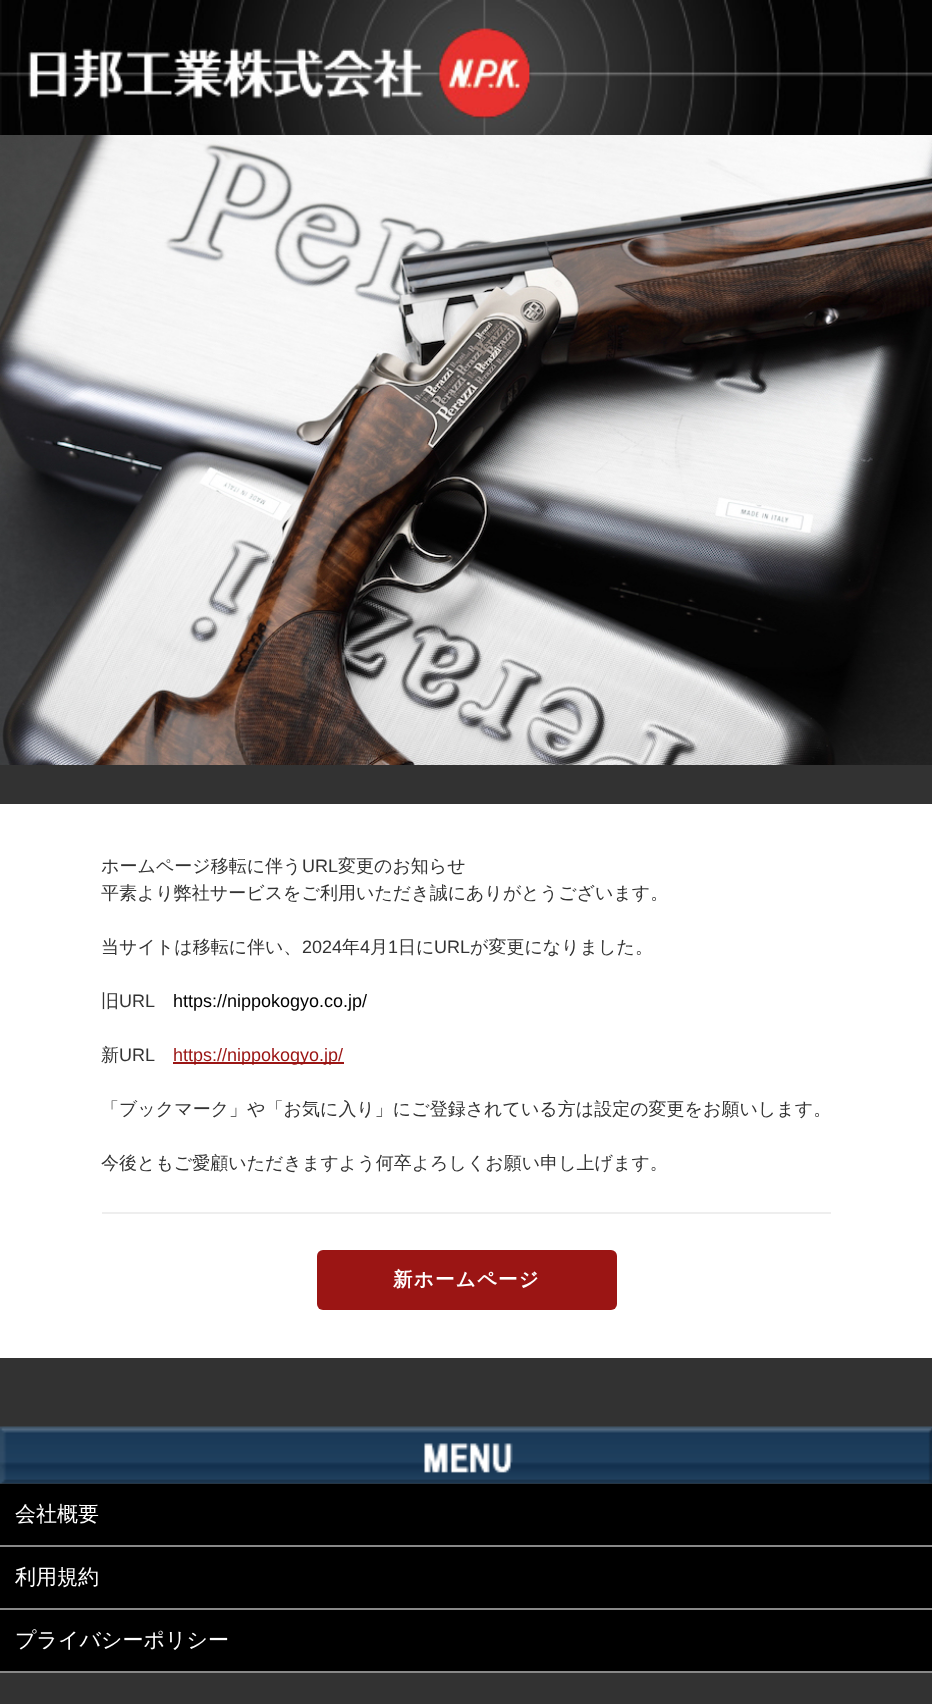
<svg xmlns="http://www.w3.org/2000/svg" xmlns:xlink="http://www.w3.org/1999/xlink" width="932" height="1704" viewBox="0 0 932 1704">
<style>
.cls-1{font:500 18px WenQuanYi Zen Hei;fill:#333333}
.cls-2{font:18px Liberation Sans;fill:#333333}
.cls-3{font:18px Liberation Sans;fill:#000000}
.cls-4{font:18px Liberation Sans;fill:#9b1514}
.cls-5{font:bold 19.5px WenQuanYi Zen Hei;letter-spacing:1.25px;fill:#ffffff}
.cls-6{font:500 21px WenQuanYi Zen Hei;fill:#ffffff}
</style>
<rect width="100%" height="100%" fill="#323232"/>
<image xlink:href="image0.png" x="0" y="0" width="932" height="135"/>
<image xlink:href="image1.png" x="0" y="135" width="932" height="630"/>
<rect fill="#ffffff" x="0" y="804" width="932" height="554"/>
<rect fill="#eeeeee" x="102" y="1212" width="729" height="2"/>
<rect fill="#9b1514" x="173" y="1062" width="171" height="2"/>
<rect fill="#9b1514" x="317" y="1250" width="300" height="60" rx="6"/>
<image xlink:href="image2.png" x="0" y="1426" width="932" height="58"/>
<rect fill="#000000" x="0" y="1484" width="932" height="187"/>
<rect fill="#888888" x="0" y="1545" width="932" height="2"/>
<rect fill="#888888" x="0" y="1608" width="932" height="2"/>
<rect fill="#888888" x="0" y="1671" width="932" height="2"/>
<text class="cls-1" x="101" y="872">ホームページ移転に伴う</text>
<text class="cls-2" x="302" y="872">URL</text>
<text class="cls-1" x="338" y="872">変更のお知らせ</text>
<text class="cls-1" x="101" y="899">平素より弊社サービスをご利用いただき誠にありがとうございます。</text>
<text class="cls-1" x="101" y="953">当サイトは移転に伴い、</text>
<text class="cls-2" x="302" y="953">2024</text>
<text class="cls-1" x="342" y="953">年</text>
<text class="cls-2" x="360" y="953">4</text>
<text class="cls-1" x="370" y="953">月</text>
<text class="cls-2" x="388" y="953">1</text>
<text class="cls-1" x="398" y="953">日に</text>
<text class="cls-2" x="434" y="953">URL</text>
<text class="cls-1" x="470" y="953">が変更になりました。</text>
<text class="cls-1" x="101" y="1007">旧</text>
<text class="cls-2" x="119" y="1007">URL</text>
<text class="cls-3" x="173" y="1007">https://nippokogyo.co.jp/</text>
<text class="cls-1" x="101" y="1061">新</text>
<text class="cls-2" x="119" y="1061">URL</text>
<text class="cls-4" x="173" y="1061">https://nippokogyo.jp/</text>
<text class="cls-1" x="101" y="1115">「ブックマーク」や「お気に入り」にご登録されている方は設定の変更をお願いします。</text>
<text class="cls-1" x="101" y="1169">今後ともご愛顧いただきますよう何卒よろしくお願い申し上げます。</text>
<text class="cls-5" x="393" y="1286">新ホームページ</text>
<text class="cls-6" x="15" y="1521">会社概要</text>
<text class="cls-6" x="15" y="1584">利用規約</text>
<text class="cls-6" x="15" y="1647">プライバシーポリシー</text>
</svg>
